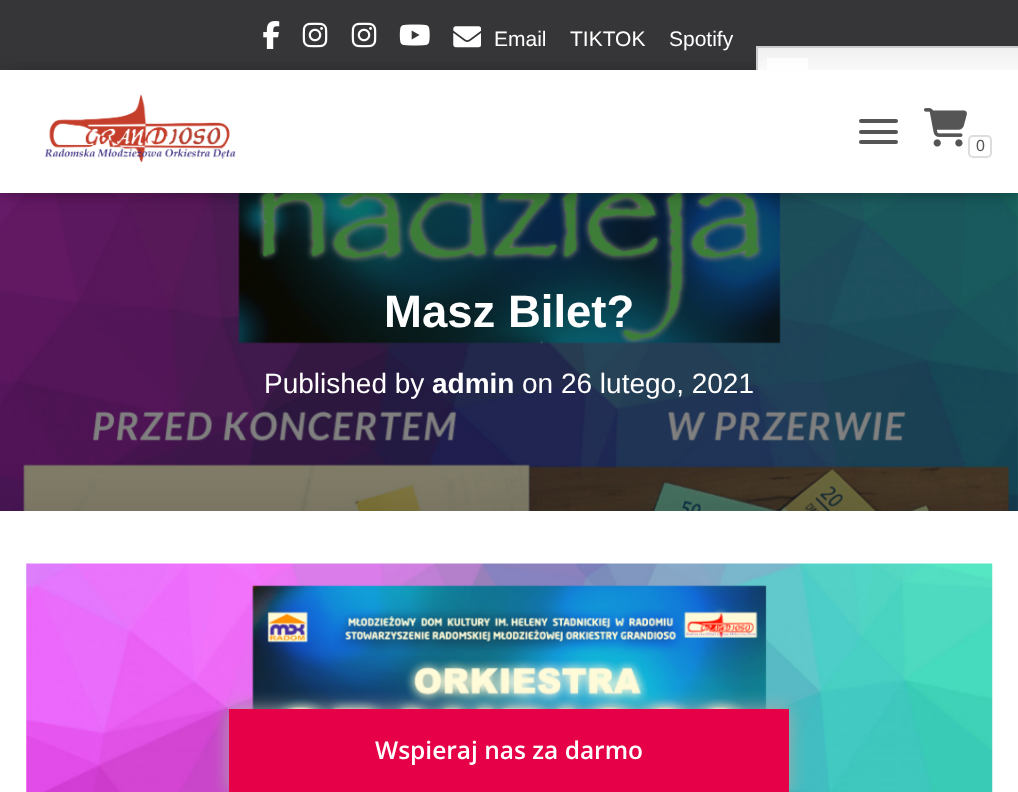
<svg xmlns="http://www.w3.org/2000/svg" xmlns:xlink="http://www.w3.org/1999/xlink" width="1018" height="792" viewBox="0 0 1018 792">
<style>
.cls-1{font:21px Liberation Sans;fill:#ffffff}
.cls-2{font:16px Liberation Sans;fill:#555555}
.cls-3{font:bold 45.5px Liberation Sans;fill:#ffffff}
.cls-4{font:28px Liberation Sans;fill:#ffffff}
.cls-5{font:bold 28px Liberation Sans;fill:#ffffff}
.cls-6{font:600 24.5px Open Sans;fill:#ffffff}
</style>
<defs>
<linearGradient id="g1" gradientUnits="userSpaceOnUse" x1="907" y1="45" x2="907" y2="102"><stop offset="0" stop-color="#efefef"/><stop offset="0.7" stop-color="#ffffff"/></linearGradient>
<clipPath id="clip1"><rect x="756" y="46" width="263" height="24"/></clipPath>
</defs>
<rect width="100%" height="100%" fill="#ffffff"/>
<rect fill="#363537" x="0" y="0" width="1018" height="70"/>
<image xlink:href="image0.png" x="263" y="21" width="17" height="28"/>
<image xlink:href="image1.png" x="302" y="22" width="26" height="26"/>
<image xlink:href="image1.png" x="351" y="22" width="26" height="26"/>
<image xlink:href="image2.png" x="399" y="24" width="31" height="22"/>
<image xlink:href="image3.png" x="453" y="26" width="28" height="22"/>
<image xlink:href="image6.png" x="0" y="193" width="1018" height="318"/>
<rect fill="#000000" fill-opacity="0.1" filter="blur(4.5px)" x="4" y="81" width="1011" height="115"/>
<rect fill="#000000" fill-opacity="0.12" filter="blur(9px)" x="0" y="72" width="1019" height="122"/>
<rect fill="#000000" fill-opacity="0.42" filter="blur(9px)" x="11" y="82" width="997" height="102"/>
<rect fill="url(#g1)" x="758" y="48" width="260" height="22"/>
<rect fill="#ffffff" x="0" y="70" width="1018" height="123"/>
<g clip-path="url(#clip1)">
<rect fill="none" stroke="#cccccc" stroke-width="2" x="757" y="47" width="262" height="54"/>
</g>
<rect fill="#ffffff" fill-opacity="0.8" x="767" y="58" width="41" height="12"/>
<image xlink:href="image4.png" x="44" y="94" width="192" height="69"/>
<rect fill="#555555" x="859" y="119" width="39" height="4" rx="2"/>
<rect fill="#555555" x="859" y="130" width="39" height="4" rx="2"/>
<rect fill="#555555" x="859" y="140" width="39" height="4" rx="2"/>
<image xlink:href="image5.png" x="924" y="108" width="43" height="39"/>
<rect fill="none" stroke="#dddddd" stroke-width="2" x="969" y="136" width="22" height="21" rx="4"/>
<rect fill="#000000" fill-opacity="0.12" filter="blur(26px)" x="-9" y="513" width="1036" height="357"/>
<rect fill="#ffffff" x="0" y="511" width="1018" height="281"/>
<image xlink:href="image7.png" x="26" y="563" width="967" height="229"/>
<rect fill="#aaaaaa" filter="blur(9px)" x="229" y="709" width="560" height="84"/>
<rect fill="#e50048" x="229" y="709" width="560" height="83"/>
<text class="cls-1" x="494" y="46">Email</text>
<text class="cls-1" x="570" y="46">TIKTOK</text>
<text class="cls-1" x="669" y="46">Spotify</text>
<text class="cls-2" x="976" y="151">0</text>
<text class="cls-3" x="384" y="327">Masz Bilet?</text>
<text class="cls-4" x="264" y="393">Published by</text>
<text class="cls-5" x="432" y="393">admin</text>
<text class="cls-4" x="522" y="393">on 26 lutego, 2021</text>
<text class="cls-6" x="375" y="759">Wspieraj nas za darmo</text>
</svg>
